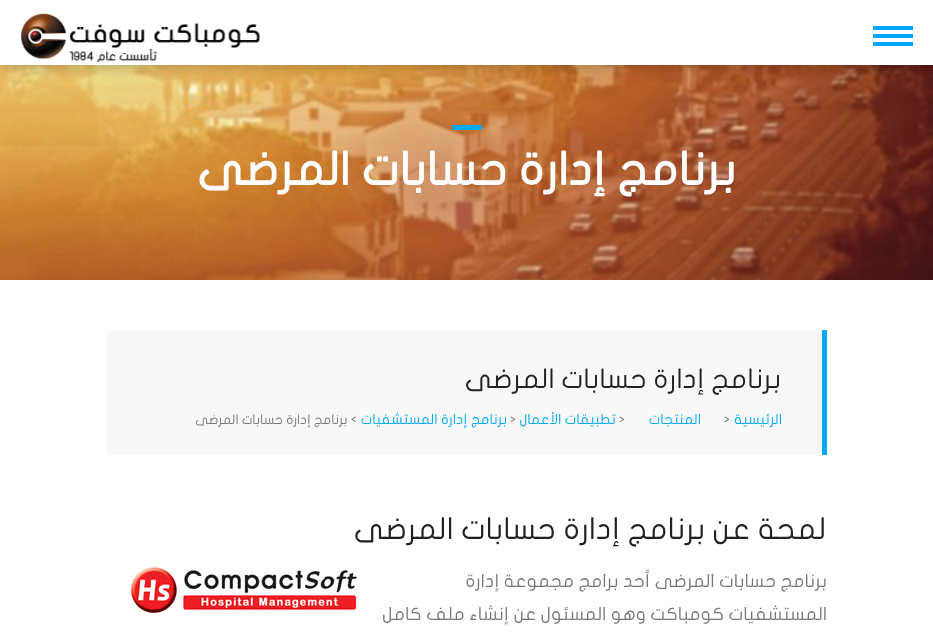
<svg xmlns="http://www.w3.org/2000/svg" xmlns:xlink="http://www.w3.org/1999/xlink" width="933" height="634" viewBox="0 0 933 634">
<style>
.cls-1{font:bold 46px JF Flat;direction:rtl;fill:#ffffff}
.cls-2{font:27px JF Flat;direction:rtl;fill:#222222}
.cls-3{font:14px JF Flat;direction:rtl;fill:#03a9f5}
.cls-4{font:13px JF Flat;fill:#777777}
.cls-5{font:13px JF Flat;direction:rtl;fill:#777777}
.cls-6{font:30px JF Flat;direction:rtl;fill:#222222}
.cls-7{font:18px JF Flat;direction:rtl;fill:#777777}
</style>
<rect width="100%" height="100%" fill="#ffffff"/>
<image xlink:href="image1.png" x="0" y="65" width="933" height="215"/>
<rect fill="#000000" fill-opacity="0.3" filter="blur(7.5px)" x="0" y="0" width="933" height="65"/>
<rect fill="#ffffff" x="0" y="0" width="933" height="65"/>
<rect fill="#03a9f5" x="873" y="34" width="40" height="4"/>
<rect fill="#03a9f5" x="873" y="26" width="40" height="4"/>
<rect fill="#03a9f5" x="873" y="42" width="40" height="4"/>
<image xlink:href="image0.png" x="20" y="13" width="240" height="49"/>
<rect fill="#03a9f5" x="452" y="125" width="30" height="5"/>
<rect fill="#f8f8f8" x="107" y="330" width="715" height="125"/>
<rect fill="#03a9f5" x="822" y="330" width="5" height="125"/>
<image xlink:href="image2.png" x="131" y="567" width="226" height="46"/>
<text class="cls-1" x="736" y="185">برنامج إدارة حسابات المرضى</text>
<text class="cls-2" x="781" y="388">برنامج إدارة حسابات المرضى</text>
<text class="cls-3" x="782" y="424">الرئيسية</text>
<text class="cls-4" x="724" y="424">&gt;</text>
<text class="cls-3" x="701" y="424">المنتجات</text>
<text class="cls-4" x="619" y="424">&gt;</text>
<text class="cls-3" x="616" y="424">تطبيقات الأعمال</text>
<text class="cls-4" x="510" y="424">&gt;</text>
<text class="cls-3" x="507" y="424">برنامج إدارة المستشفيات</text>
<text class="cls-5" x="357" y="424">&gt; برنامج إدارة حسابات المرضى</text>
<text class="cls-6" x="826" y="539">لمحة عن برنامج إدارة حسابات المرضى</text>
<text class="cls-7"><tspan x="827" y="587">برنامج حسابات المرضى أحد برامج مجموعة إدارة</tspan><tspan x="827" y="620">المستشفيات كومباكت وهو المسئول عن إنشاء ملف كامل</tspan></text>
</svg>
